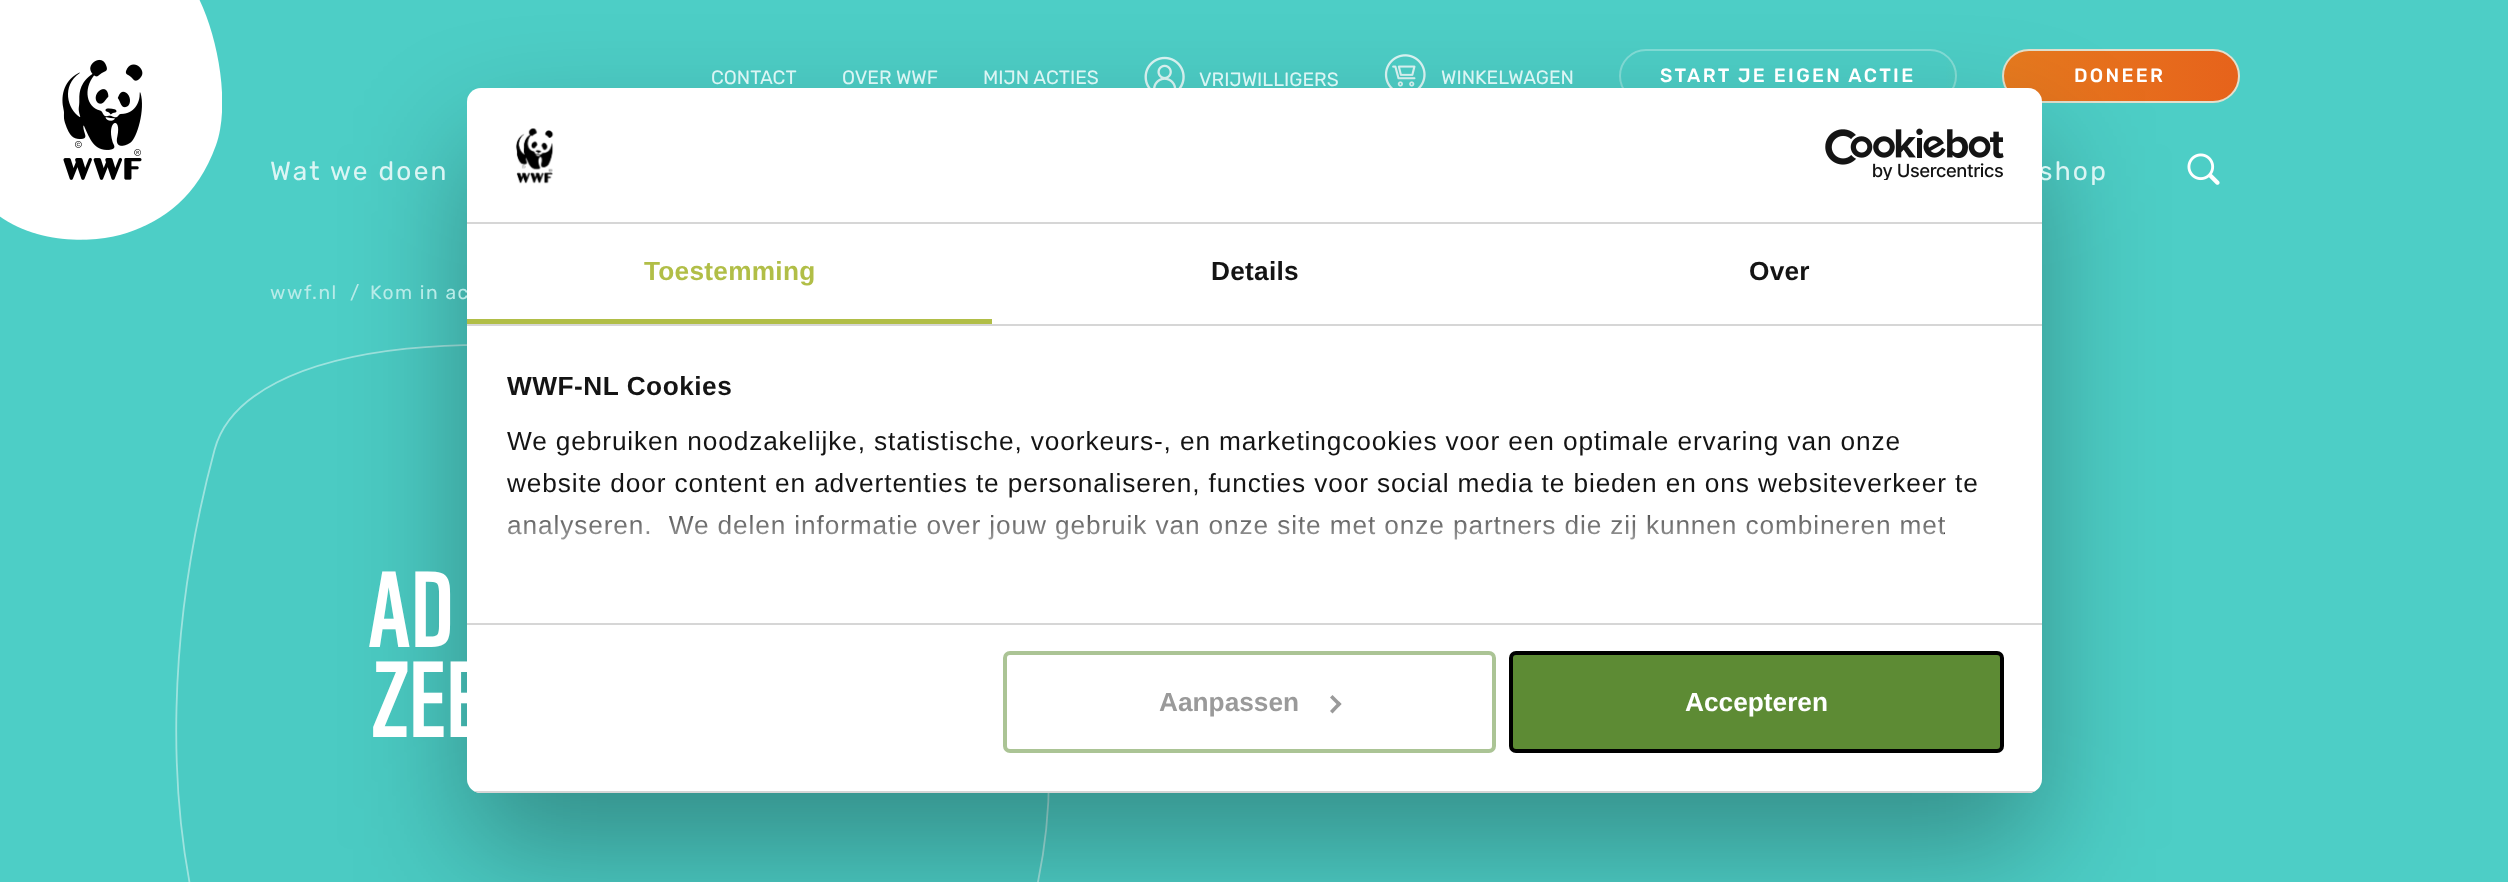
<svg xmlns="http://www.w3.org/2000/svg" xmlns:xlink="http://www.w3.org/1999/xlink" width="2508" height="882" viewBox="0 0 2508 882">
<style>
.cls-1{font:19.25px Rubik;fill:#dbf5f4}
.cls-2{font:500 19.25px Rubik;letter-spacing:2.3px;fill:#ffffff}
.cls-3{font:26.25px Rubik;letter-spacing:2.25px;fill:#dbf5f4}
.cls-4{font:19.25px Rubik;letter-spacing:1.5px;fill:#b8ebe8}
.cls-5{font:105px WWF;letter-spacing:1px;fill:#ffffff}
.cls-6{font:bold 26.25px Liberation Sans;letter-spacing:0.25px;fill:#b1be47}
.cls-7{font:bold 26.25px Liberation Sans;letter-spacing:0.25px;fill:#141414}
.cls-8{font:bold 26.25px Liberation Sans;letter-spacing:0.5px;fill:#141414}
.cls-9{font:26.25px Liberation Sans;letter-spacing:0.88px;fill:#141414}
.cls-10{font:bold 26.25px Liberation Sans;fill:#9a9a9a}
.cls-11{font:bold 26.25px Liberation Sans;fill:#ffffff}
</style>
<defs>
<linearGradient id="g1" gradientUnits="userSpaceOnUse" x1="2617" y1="76" x2="1614" y2="76"><stop offset="0" stop-color="#5d8b34"/><stop offset="0.33" stop-color="#b1be47"/><stop offset="0.67" stop-color="#4dcec6"/><stop offset="1" stop-color="#4dcec6"/></linearGradient>
<linearGradient id="g2" gradientUnits="userSpaceOnUse" x1="1999" y1="76" x2="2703" y2="76"><stop offset="0" stop-color="#e77b1f"/><stop offset="0.5" stop-color="#e65719"/><stop offset="1" stop-color="#e77b1f"/></linearGradient>
<linearGradient id="g3" gradientUnits="userSpaceOnUse" x1="1237" y1="624" x2="1237" y2="492"><stop offset="0" stop-color="#ffffff"/><stop offset="0.5" stop-color="#ffffff" stop-opacity="0.8"/><stop offset="1" stop-color="#ffffff" stop-opacity="0"/></linearGradient>
<clipPath id="clip1"><rect x="467" y="88" width="1575" height="705" rx="14"/></clipPath>
</defs>
<rect width="100%" height="100%" fill="#4dcec6"/>
<image xlink:href="image0.png" x="0" y="0" width="222" height="240"/>
<image xlink:href="image1.png" x="1144" y="56" width="41" height="32"/>
<image xlink:href="image2.png" x="1384" y="54" width="42" height="34"/>
<rect fill="url(#g1)" x="1619" y="49" width="338" height="54" rx="27"/>
<rect fill="none" stroke="#ffffff" stroke-opacity="0.3" stroke-width="2" x="1620" y="50" width="336" height="52" rx="26"/>
<rect fill="url(#g2)" stroke="#e2e0ce" stroke-width="2" x="2003" y="50" width="236" height="52" rx="26"/>
<image xlink:href="image3.png" x="2187" y="153" width="33" height="32"/>
<path fill="#4bcbc3" d="M795 388C989 440 1095 676 1031 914C970 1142 692 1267 411 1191C207 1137 118 805 214 450C244 338 504 310 795 388Z"/>
<path fill="none" stroke="#ffffff" stroke-opacity="0.46" stroke-width="1.8" d="M795 389.5C988.5 441 1094 676 1030.5 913.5C969.5 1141.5 692 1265.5 411 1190.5C207.5 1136 119.5 804.5 214.5 450C244 338.5 504 311.5 795 389.5Z"/>
<rect fill="#000000" fill-opacity="0.3" filter="blur(59.5px)" x="467" y="144" width="1575" height="705" rx="14"/>
<text class="cls-1" x="711" y="84">CONTACT</text>
<text class="cls-1" x="842" y="84">OVER WWF</text>
<text class="cls-1" x="983" y="84">MIJN ACTIES</text>
<text class="cls-1" x="1199" y="86">VRIJWILLIGERS</text>
<text class="cls-1" x="1441" y="84">WINKELWAGEN</text>
<text class="cls-2" x="1660" y="82">START JE EIGEN ACTIE</text>
<text class="cls-2" x="2074" y="82">DONEER</text>
<text class="cls-3" x="270" y="180">Wat we doen</text>
<text class="cls-3" x="2039" y="180">shop</text>
<text class="cls-4" x="270" y="299">wwf.nl</text>
<text class="cls-4" x="350" y="299">/</text>
<text class="cls-4" x="370" y="299">Kom in ac</text>
<text class="cls-5" x="368" y="647">AD</text>
<text class="cls-5" x="372" y="737">ZEE</text>
<rect fill="#ffffff" x="467" y="88" width="1575" height="705" rx="14"/>
<rect fill="#d6d6d6" x="467" y="222" width="1575" height="2"/>
<image xlink:href="image4.png" x="515" y="128" width="39" height="56"/>
<image xlink:href="image5.png" x="1825" y="128" width="179" height="52"/>
<rect fill="#d6d6d6" x="467" y="324" width="1575" height="2"/>
<rect fill="#b1be47" x="467" y="319" width="525" height="5"/>
<text class="cls-6" x="644" y="280">Toestemming</text>
<text class="cls-7" x="1211" y="280">Details</text>
<text class="cls-7" x="1749" y="280">Over</text>
<rect fill="#d6d6d6" x="467" y="623" width="1575" height="2"/>
<text class="cls-8" x="507" y="395">WWF-NL Cookies</text>
<text class="cls-9" xml:space="preserve"><tspan x="507" y="450">We gebruiken noodzakelijke, statistische, voorkeurs-, en marketingcookies voor een optimale ervaring van onze</tspan><tspan x="507" y="492">website door content en advertenties te personaliseren, functies voor social media te bieden en ons websiteverkeer te</tspan><tspan x="507" y="534">analyseren.  We delen informatie over jouw gebruik van onze site met onze partners die zij kunnen combineren met</tspan></text>
<rect fill="url(#g3)" x="507" y="494" width="1437" height="46"/>
<g clip-path="url(#clip1)">
<rect fill="#d6d6d6" x="467" y="791" width="1575" height="2"/>
</g>
<rect fill="none" stroke="#abc495" stroke-width="4" x="1005" y="653" width="489" height="98" rx="5"/>
<text class="cls-10" x="1159" y="711">Aanpassen</text>
<path fill="#9a9a9a" d="M1332.5 695L1341.5 704L1339 706.5L1330 697.5Z"/>
<path fill="#9a9a9a" d="M1339 701.5L1341.5 704L1332.5 713.5L1330 711Z"/>
<rect fill="#5d8b34" stroke="#000000" stroke-width="4" x="1511" y="653" width="491" height="98" rx="5"/>
<text class="cls-11" x="1685" y="711">Accepteren</text>
</svg>
